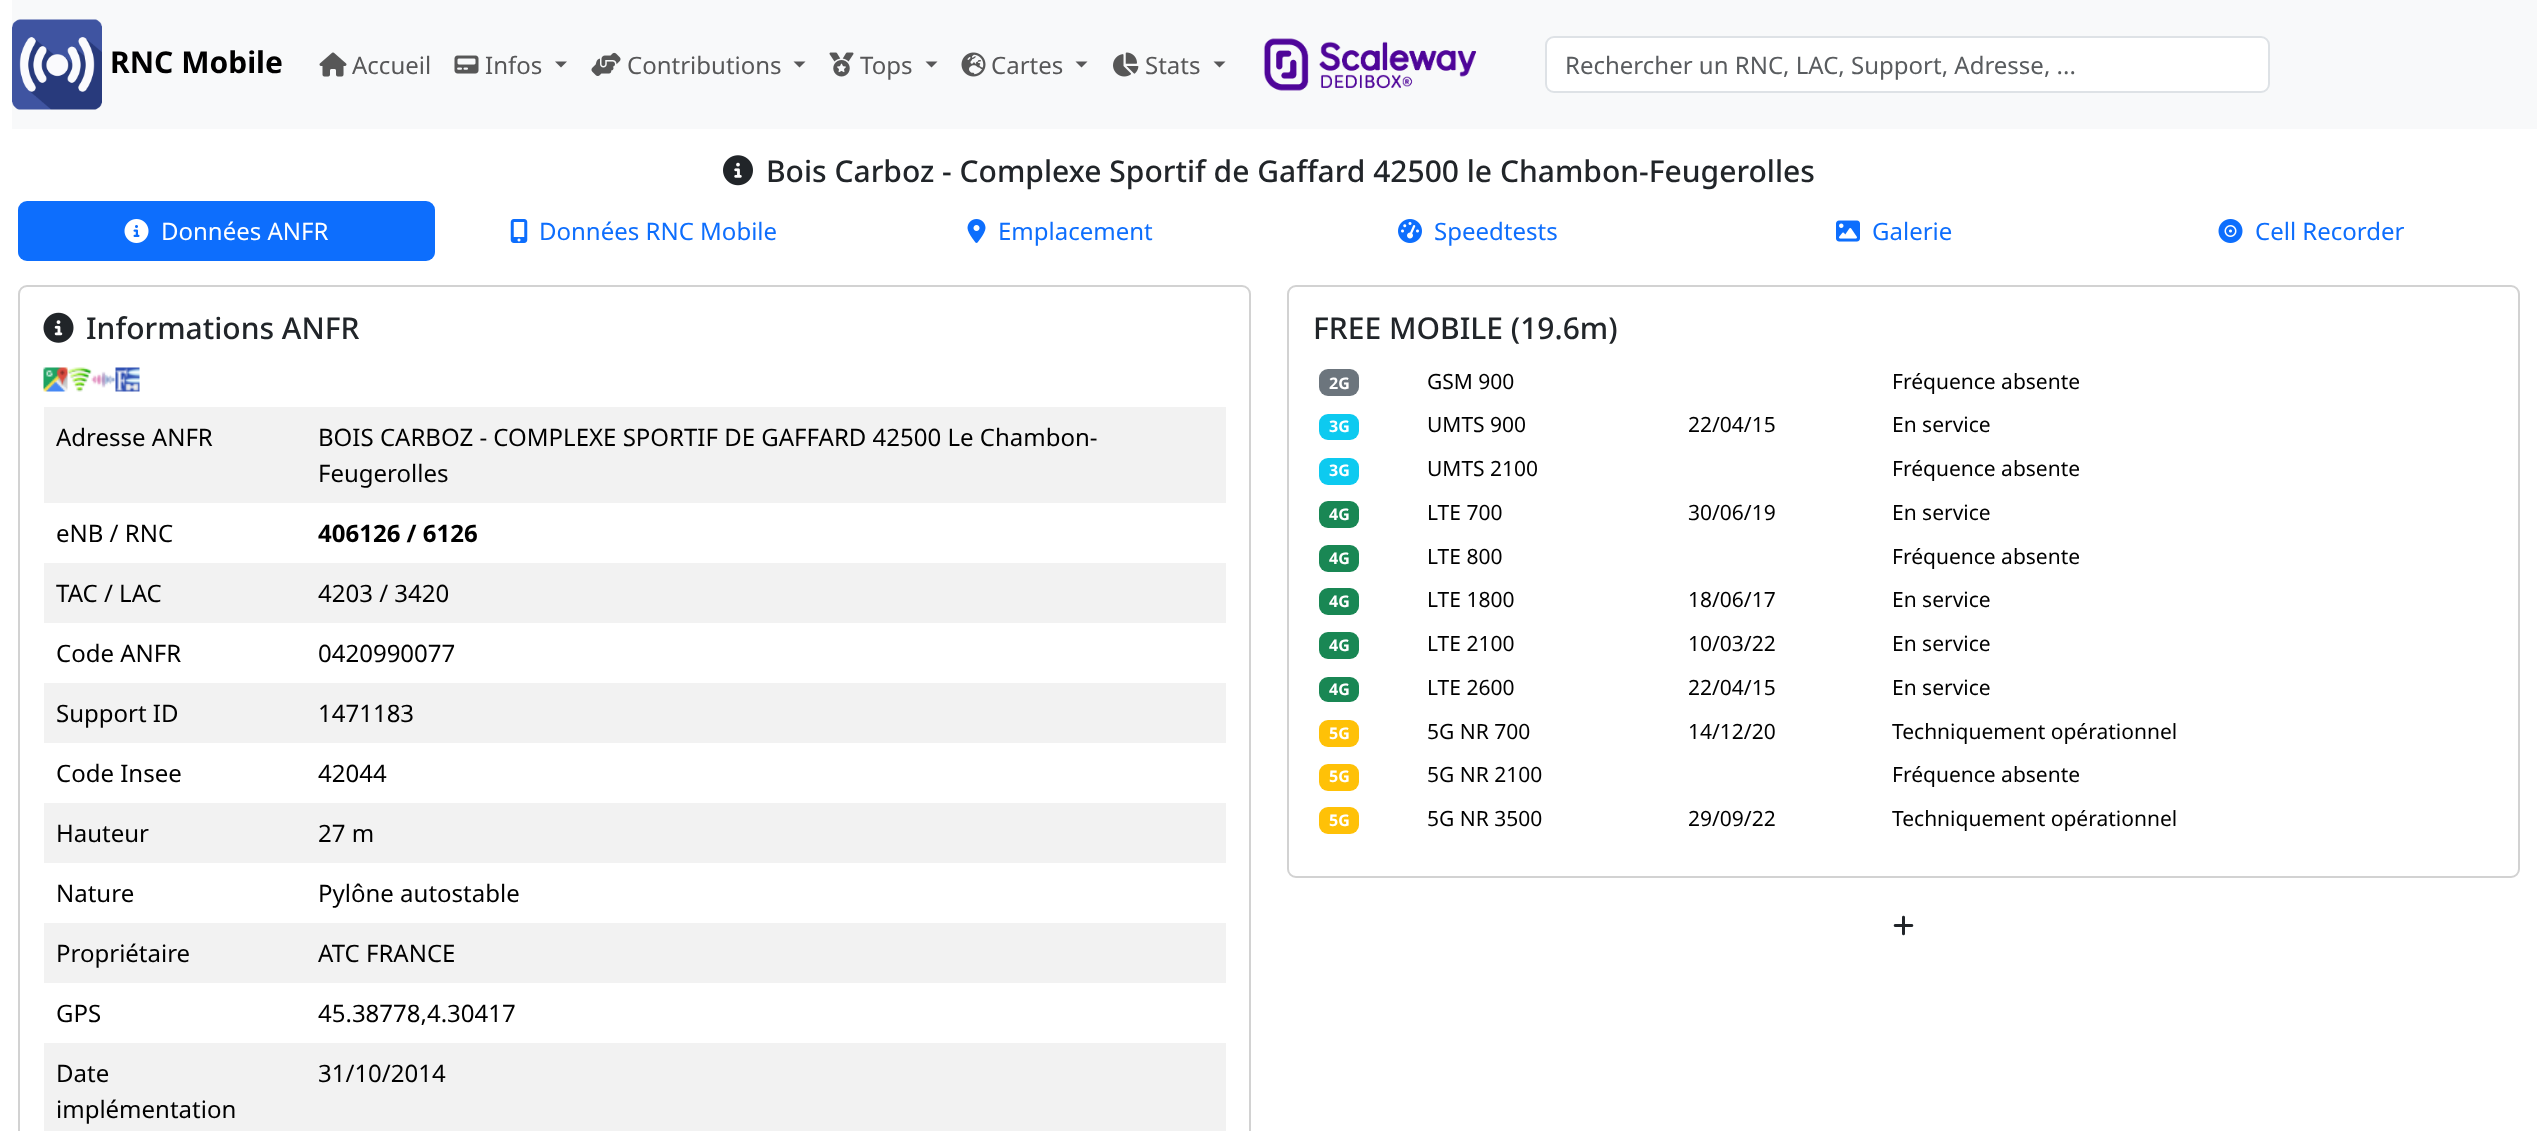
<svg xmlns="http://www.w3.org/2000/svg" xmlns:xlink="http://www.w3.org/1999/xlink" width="2537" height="1131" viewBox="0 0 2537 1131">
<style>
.cls-1{font:bold 30px Noto Sans;fill:#000000}
.cls-2{font:24px Noto Sans;fill:#575758}
.cls-3{font:24px Noto Sans;fill:#595c5f}
.cls-4{font:500 30px Noto Sans;fill:#212529}
.cls-5{font:24px Noto Sans;fill:#ffffff}
.cls-6{font:24px Noto Sans;fill:#0d6efd}
.cls-7{font:24px Noto Sans;fill:#000000}
.cls-8{font:bold 24px Noto Sans;fill:#000000}
.cls-9{font:bold 16px Noto Sans;fill:#ffffff}
.cls-10{font:21px Noto Sans;fill:#000000}
</style>
<rect width="100%" height="100%" fill="#ffffff"/>
<rect fill="#f8f9fa" x="12" y="0" width="2525" height="129"/>
<image xlink:href="image0.png" x="12" y="19" width="90" height="91"/>
<image xlink:href="image1.png" x="319" y="52" width="28" height="25"/>
<image xlink:href="image2.png" x="454" y="55" width="25" height="19"/>
<path fill="#575758" d="M555 61.5H567L561 67.5Z"/>
<image xlink:href="image3.png" x="591" y="52" width="30" height="24"/>
<path fill="#575758" d="M793.5 61.5H805.5L799.5 67.5Z"/>
<image xlink:href="image4.png" x="829" y="52" width="25" height="25"/>
<path fill="#575758" d="M925.5 61.5H937.5L931.5 67.5Z"/>
<image xlink:href="image5.png" x="961" y="52" width="25" height="25"/>
<path fill="#575758" d="M1075.5 61.5H1087.5L1081.5 67.5Z"/>
<image xlink:href="image6.png" x="1113" y="52" width="26" height="25"/>
<path fill="#575758" d="M1213.5 61.5H1225.5L1219.5 67.5Z"/>
<image xlink:href="image7.png" x="1263" y="38" width="214" height="53"/>
<rect fill="#ffffff" stroke="#dee2e6" stroke-width="2" x="1546" y="37" width="723" height="55" rx="8"/>
<image xlink:href="image8.png" x="723" y="155" width="30" height="31"/>
<rect fill="#0d6efd" x="18" y="201" width="417" height="60" rx="9"/>
<image xlink:href="image9.png" x="124" y="219" width="25" height="24"/>
<image xlink:href="image10.png" x="510" y="219" width="18" height="24"/>
<image xlink:href="image11.png" x="967" y="219" width="19" height="24"/>
<image xlink:href="image12.png" x="1398" y="219" width="24" height="24"/>
<image xlink:href="image13.png" x="1836" y="220" width="24" height="22"/>
<image xlink:href="image14.png" x="2218" y="219" width="25" height="24"/>
<rect fill="none" stroke="#d2d2d2" stroke-width="2" x="19" y="286" width="1231" height="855" rx="8"/>
<image xlink:href="image15.png" x="43" y="312" width="31" height="31"/>
<image xlink:href="image16.png" x="43" y="367" width="25" height="25"/>
<image xlink:href="image17.png" x="67" y="367" width="25" height="25"/>
<image xlink:href="image18.png" x="91" y="370" width="25" height="18"/>
<image xlink:href="image19.png" x="115" y="367" width="25" height="25"/>
<rect fill="#f2f2f2" x="44" y="407" width="1182" height="96"/>
<rect fill="#f2f2f2" x="44" y="563" width="1182" height="60"/>
<rect fill="#f2f2f2" x="44" y="683" width="1182" height="60"/>
<rect fill="#f2f2f2" x="44" y="803" width="1182" height="60"/>
<rect fill="#f2f2f2" x="44" y="923" width="1182" height="60"/>
<rect fill="#f2f2f2" x="44" y="1043" width="1182" height="88"/>
<rect fill="none" stroke="#d2d2d2" stroke-width="2" x="1288" y="286" width="1231" height="591" rx="8"/>
<rect fill="#6c757d" x="1319" y="369" width="40" height="27" rx="9"/>
<rect fill="#0dcaf0" x="1319" y="414" width="40" height="26" rx="9"/>
<rect fill="#0dcaf0" x="1319" y="458" width="40" height="27" rx="9"/>
<rect fill="#198754" x="1319" y="501" width="40" height="27" rx="9"/>
<rect fill="#198754" x="1319" y="545" width="40" height="27" rx="9"/>
<rect fill="#198754" x="1319" y="588" width="40" height="27" rx="9"/>
<rect fill="#198754" x="1319" y="632" width="40" height="27" rx="9"/>
<rect fill="#198754" x="1319" y="677" width="40" height="25" rx="9"/>
<rect fill="#ffc107" x="1319" y="720" width="40" height="27" rx="9"/>
<rect fill="#ffc107" x="1319" y="764" width="40" height="27" rx="9"/>
<rect fill="#ffc107" x="1319" y="807" width="40" height="27" rx="9"/>
<image xlink:href="image20.png" x="1893" y="915" width="21" height="21"/>
<text class="cls-1" x="110" y="73">RNC Mobile</text>
<text class="cls-2" x="352" y="74">Accueil</text>
<text class="cls-2" x="485" y="74">Infos</text>
<text class="cls-2" x="627" y="74">Contributions</text>
<text class="cls-2" x="860" y="74">Tops</text>
<text class="cls-2" x="991" y="74">Cartes</text>
<text class="cls-2" x="1145" y="74">Stats</text>
<text class="cls-3" x="1565" y="74">Rechercher un RNC, LAC, Support, Adresse, ...</text>
<text class="cls-4" x="766" y="182">Bois Carboz - Complexe Sportif de Gaffard 42500 le Chambon-Feugerolles</text>
<text class="cls-5" x="161" y="240">Données ANFR</text>
<text class="cls-6" x="539" y="240">Données RNC Mobile</text>
<text class="cls-6" x="998" y="240">Emplacement</text>
<text class="cls-6" x="1434" y="240">Speedtests</text>
<text class="cls-6" x="1872" y="240">Galerie</text>
<text class="cls-6" x="2255" y="240">Cell Recorder</text>
<text class="cls-4" x="86" y="339">Informations ANFR</text>
<text class="cls-7" x="56" y="446">Adresse ANFR</text>
<text class="cls-7"><tspan x="318" y="446">BOIS CARBOZ - COMPLEXE SPORTIF DE GAFFARD 42500 Le Chambon-</tspan><tspan x="318" y="482">Feugerolles</tspan></text>
<text class="cls-7" x="56" y="542">eNB / RNC</text>
<text class="cls-8" x="318" y="542">406126 / 6126</text>
<text class="cls-7" x="56" y="602">TAC / LAC</text>
<text class="cls-7" x="318" y="602">4203 / 3420</text>
<text class="cls-7" x="56" y="662">Code ANFR</text>
<text class="cls-7" x="318" y="662">0420990077</text>
<text class="cls-7" x="56" y="722">Support ID</text>
<text class="cls-7" x="318" y="722">1471183</text>
<text class="cls-7" x="56" y="782">Code Insee</text>
<text class="cls-7" x="318" y="782">42044</text>
<text class="cls-7" x="56" y="842">Hauteur</text>
<text class="cls-7" x="318" y="842">27 m</text>
<text class="cls-7" x="56" y="902">Nature</text>
<text class="cls-7" x="318" y="902">Pylône autostable</text>
<text class="cls-7" x="56" y="962">Propriétaire</text>
<text class="cls-7" x="318" y="962">ATC FRANCE</text>
<text class="cls-7" x="56" y="1022">GPS</text>
<text class="cls-7" x="318" y="1022">45.38778,4.30417</text>
<text class="cls-7"><tspan x="56" y="1082">Date</tspan><tspan x="56" y="1118">implémentation</tspan></text>
<text class="cls-7" x="318" y="1082">31/10/2014</text>
<text class="cls-4" x="1313" y="339">FREE MOBILE (19.6m)</text>
<text class="cls-9" x="1329" y="389">2G</text>
<text class="cls-10" x="1427" y="389">GSM 900</text>
<text class="cls-10" x="1892" y="389">Fréquence absente</text>
<text class="cls-9" x="1329" y="432">3G</text>
<text class="cls-10" x="1427" y="432">UMTS 900</text>
<text class="cls-10" x="1688" y="432">22/04/15</text>
<text class="cls-10" x="1892" y="432">En service</text>
<text class="cls-9" x="1329" y="476">3G</text>
<text class="cls-10" x="1427" y="476">UMTS 2100</text>
<text class="cls-10" x="1892" y="476">Fréquence absente</text>
<text class="cls-9" x="1329" y="520">4G</text>
<text class="cls-10" x="1427" y="520">LTE 700</text>
<text class="cls-10" x="1688" y="520">30/06/19</text>
<text class="cls-10" x="1892" y="520">En service</text>
<text class="cls-9" x="1329" y="564">4G</text>
<text class="cls-10" x="1427" y="564">LTE 800</text>
<text class="cls-10" x="1892" y="564">Fréquence absente</text>
<text class="cls-9" x="1329" y="607">4G</text>
<text class="cls-10" x="1427" y="607">LTE 1800</text>
<text class="cls-10" x="1688" y="607">18/06/17</text>
<text class="cls-10" x="1892" y="607">En service</text>
<text class="cls-9" x="1329" y="651">4G</text>
<text class="cls-10" x="1427" y="651">LTE 2100</text>
<text class="cls-10" x="1688" y="651">10/03/22</text>
<text class="cls-10" x="1892" y="651">En service</text>
<text class="cls-9" x="1329" y="695">4G</text>
<text class="cls-10" x="1427" y="695">LTE 2600</text>
<text class="cls-10" x="1688" y="695">22/04/15</text>
<text class="cls-10" x="1892" y="695">En service</text>
<text class="cls-9" x="1329" y="739">5G</text>
<text class="cls-10" x="1427" y="739">5G NR 700</text>
<text class="cls-10" x="1688" y="739">14/12/20</text>
<text class="cls-10" x="1892" y="739">Techniquement opérationnel</text>
<text class="cls-9" x="1329" y="782">5G</text>
<text class="cls-10" x="1427" y="782">5G NR 2100</text>
<text class="cls-10" x="1892" y="782">Fréquence absente</text>
<text class="cls-9" x="1329" y="826">5G</text>
<text class="cls-10" x="1427" y="826">5G NR 3500</text>
<text class="cls-10" x="1688" y="826">29/09/22</text>
<text class="cls-10" x="1892" y="826">Techniquement opérationnel</text>
</svg>
